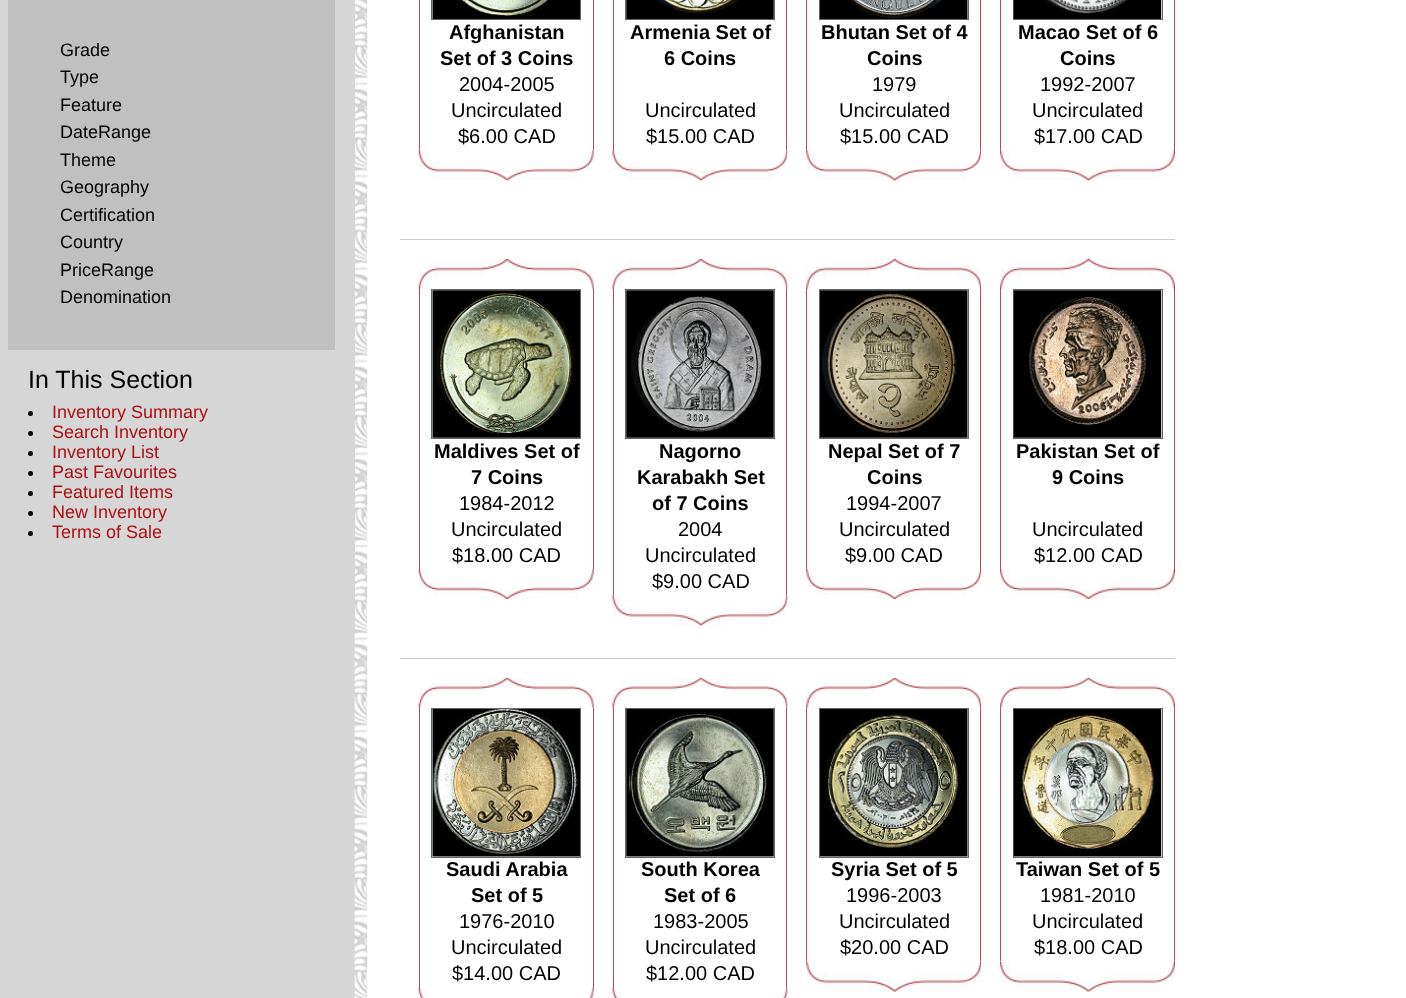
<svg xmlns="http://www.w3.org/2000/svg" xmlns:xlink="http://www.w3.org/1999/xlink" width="1406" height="998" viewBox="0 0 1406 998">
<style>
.cls-1{font:18px Liberation Sans;fill:#000000}
.cls-2{font:25px Liberation Sans;fill:#000000}
.cls-3{font:18px Liberation Sans;fill:#ad1015}
.cls-4{font:bold 20px Liberation Sans;fill:#000000}
.cls-5{font:20px Liberation Sans;fill:#000000}
</style>
<rect width="100%" height="100%" fill="#ffffff"/>
<image xlink:href="image0.png" x="354" y="0" width="14" height="998"/>
<image xlink:href="image1.png" x="0" y="0" width="1406" height="998"/>
<rect fill="#d6d6d6" x="354" y="0" width="1" height="629"/>
<rect fill="#c0c0c0" x="8" y="0" width="327" height="350"/>
<circle fill="#000000" cx="30.5" cy="413.5" r="2.5"/>
<circle fill="#000000" cx="30.5" cy="433.5" r="2.5"/>
<circle fill="#000000" cx="30.5" cy="453.5" r="2.5"/>
<circle fill="#000000" cx="30.5" cy="473.5" r="2.5"/>
<circle fill="#000000" cx="30.5" cy="493.5" r="2.5"/>
<circle fill="#000000" cx="30.5" cy="513.5" r="2.5"/>
<circle fill="#000000" cx="30.5" cy="533.5" r="2.5"/>
<rect fill="#cccccc" x="400" y="239" width="775" height="1"/>
<rect fill="#b34f53" x="593" y="0" width="1" height="150"/>
<rect fill="#b34f53" x="419" y="0" width="1" height="150"/>
<rect fill="none" stroke="#656565" x="431.5" y="-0.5" width="149" height="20"/>
<image xlink:href="image2.png" x="432" y="0" width="148" height="19"/>
<image xlink:href="image3.png" x="418" y="150" width="176" height="31"/>
<rect fill="#b34f53" x="786" y="0" width="1" height="150"/>
<rect fill="#b34f53" x="613" y="0" width="1" height="150"/>
<rect fill="none" stroke="#656565" x="625.5" y="-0.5" width="149" height="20"/>
<image xlink:href="image4.png" x="626" y="0" width="148" height="19"/>
<image xlink:href="image5.png" x="612" y="150" width="176" height="31"/>
<rect fill="#b34f53" x="980" y="0" width="1" height="150"/>
<rect fill="#b34f53" x="806" y="0" width="1" height="150"/>
<rect fill="none" stroke="#656565" x="819.5" y="-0.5" width="149" height="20"/>
<image xlink:href="image6.png" x="820" y="0" width="148" height="19"/>
<image xlink:href="image7.png" x="806" y="150" width="176" height="31"/>
<rect fill="#b34f53" x="1174" y="0" width="1" height="150"/>
<rect fill="#b34f53" x="1000" y="0" width="1" height="150"/>
<rect fill="none" stroke="#656565" x="1013.5" y="-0.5" width="149" height="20"/>
<image xlink:href="image8.png" x="1013" y="0" width="149" height="19"/>
<image xlink:href="image9.png" x="1000" y="150" width="175" height="31"/>
<rect fill="#cccccc" x="400" y="658" width="775" height="1"/>
<image xlink:href="image10.png" x="418" y="259" width="176" height="30"/>
<rect fill="#b34f53" x="593" y="289" width="1" height="280"/>
<rect fill="#b34f53" x="419" y="289" width="1" height="280"/>
<rect fill="none" stroke="#656565" x="431.5" y="289.5" width="149" height="149"/>
<image xlink:href="image11.png" x="432" y="290" width="148" height="148"/>
<image xlink:href="image12.png" x="418" y="569" width="176" height="30"/>
<image xlink:href="image13.png" x="612" y="259" width="176" height="30"/>
<rect fill="#b34f53" x="786" y="289" width="1" height="306"/>
<rect fill="#b34f53" x="613" y="289" width="1" height="306"/>
<rect fill="none" stroke="#656565" x="625.5" y="289.5" width="149" height="149"/>
<image xlink:href="image14.png" x="626" y="290" width="148" height="148"/>
<image xlink:href="image5.png" x="612" y="595" width="176" height="31"/>
<image xlink:href="image15.png" x="806" y="259" width="176" height="30"/>
<rect fill="#b34f53" x="980" y="289" width="1" height="280"/>
<rect fill="#b34f53" x="806" y="289" width="1" height="280"/>
<rect fill="none" stroke="#656565" x="819.5" y="289.5" width="149" height="149"/>
<image xlink:href="image16.png" x="820" y="290" width="148" height="148"/>
<image xlink:href="image17.png" x="806" y="569" width="176" height="30"/>
<image xlink:href="image18.png" x="1000" y="259" width="175" height="30"/>
<rect fill="#b34f53" x="1174" y="289" width="1" height="280"/>
<rect fill="#b34f53" x="1000" y="289" width="1" height="280"/>
<rect fill="none" stroke="#656565" x="1013.5" y="289.5" width="149" height="149"/>
<image xlink:href="image19.png" x="1013" y="290" width="149" height="148"/>
<image xlink:href="image20.png" x="1000" y="569" width="175" height="30"/>
<image xlink:href="image21.png" x="418" y="677" width="176" height="31"/>
<rect fill="#b34f53" x="593" y="708" width="1" height="280"/>
<rect fill="#b34f53" x="419" y="708" width="1" height="280"/>
<rect fill="none" stroke="#656565" x="431.5" y="708.5" width="149" height="149"/>
<image xlink:href="image22.png" x="432" y="709" width="148" height="148"/>
<image xlink:href="image23.png" x="418" y="987" width="176" height="11"/>
<image xlink:href="image24.png" x="612" y="677" width="176" height="31"/>
<rect fill="#b34f53" x="786" y="708" width="1" height="280"/>
<rect fill="#b34f53" x="613" y="708" width="1" height="280"/>
<rect fill="none" stroke="#656565" x="625.5" y="708.5" width="149" height="149"/>
<image xlink:href="image25.png" x="626" y="709" width="148" height="148"/>
<image xlink:href="image26.png" x="612" y="987" width="176" height="11"/>
<image xlink:href="image27.png" x="806" y="677" width="176" height="31"/>
<rect fill="#b34f53" x="980" y="708" width="1" height="253"/>
<rect fill="#b34f53" x="806" y="708" width="1" height="253"/>
<rect fill="none" stroke="#656565" x="819.5" y="708.5" width="149" height="149"/>
<image xlink:href="image28.png" x="820" y="709" width="148" height="148"/>
<image xlink:href="image29.png" x="806" y="961" width="176" height="31"/>
<image xlink:href="image30.png" x="1000" y="677" width="175" height="31"/>
<rect fill="#b34f53" x="1174" y="708" width="1" height="253"/>
<rect fill="#b34f53" x="1000" y="708" width="1" height="253"/>
<rect fill="none" stroke="#656565" x="1013.5" y="708.5" width="149" height="149"/>
<image xlink:href="image31.png" x="1013" y="709" width="149" height="148"/>
<image xlink:href="image32.png" x="1000" y="961" width="175" height="31"/>
<text class="cls-1"><tspan x="60" y="56">Grade</tspan><tspan x="60" y="83">Type</tspan><tspan x="60" y="111">Feature</tspan><tspan x="60" y="138">DateRange</tspan><tspan x="60" y="166">Theme</tspan><tspan x="60" y="193">Geography</tspan><tspan x="60" y="221">Certification</tspan><tspan x="60" y="248">Country</tspan><tspan x="60" y="276">PriceRange</tspan><tspan x="60" y="303">Denomination</tspan></text>
<text class="cls-2" x="28" y="388">In This Section</text>
<text class="cls-3"><tspan x="52" y="418">Inventory Summary</tspan><tspan x="52" y="438">Search Inventory</tspan><tspan x="52" y="458">Inventory List</tspan><tspan x="52" y="478">Past Favourites</tspan><tspan x="52" y="498">Featured Items</tspan><tspan x="52" y="518">New Inventory</tspan><tspan x="52" y="538">Terms of Sale</tspan></text>
<text class="cls-4" x="449" y="39">Afghanistan</text>
<text class="cls-4" x="440" y="65">Set of 3 Coins</text>
<text class="cls-5" x="459" y="91">2004-2005</text>
<text class="cls-5" x="451" y="117">Uncirculated</text>
<text class="cls-5" x="458" y="143">$6.00 CAD</text>
<text class="cls-4" x="630" y="39">Armenia Set of</text>
<text class="cls-4" x="664" y="65">6 Coins</text>
<text class="cls-5" x="645" y="117">Uncirculated</text>
<text class="cls-5" x="646" y="143">$15.00 CAD</text>
<text class="cls-4" x="821" y="39">Bhutan Set of 4</text>
<text class="cls-4" x="867" y="65">Coins</text>
<text class="cls-5" x="872" y="91">1979</text>
<text class="cls-5" x="839" y="117">Uncirculated</text>
<text class="cls-5" x="840" y="143">$15.00 CAD</text>
<text class="cls-4" x="1018" y="39">Macao Set of 6</text>
<text class="cls-4" x="1060" y="65">Coins</text>
<text class="cls-5" x="1040" y="91">1992-2007</text>
<text class="cls-5" x="1032" y="117">Uncirculated</text>
<text class="cls-5" x="1034" y="143">$17.00 CAD</text>
<text class="cls-4" x="434" y="458">Maldives Set of</text>
<text class="cls-4" x="471" y="484">7 Coins</text>
<text class="cls-5" x="459" y="510">1984-2012</text>
<text class="cls-5" x="451" y="536">Uncirculated</text>
<text class="cls-5" x="452" y="562">$18.00 CAD</text>
<text class="cls-4" x="659" y="458">Nagorno</text>
<text class="cls-4" x="637" y="484">Karabakh Set</text>
<text class="cls-4" x="652" y="510">of 7 Coins</text>
<text class="cls-5" x="678" y="536">2004</text>
<text class="cls-5" x="645" y="562">Uncirculated</text>
<text class="cls-5" x="652" y="588">$9.00 CAD</text>
<text class="cls-4" x="828" y="458">Nepal Set of 7</text>
<text class="cls-4" x="867" y="484">Coins</text>
<text class="cls-5" x="846" y="510">1994-2007</text>
<text class="cls-5" x="839" y="536">Uncirculated</text>
<text class="cls-5" x="845" y="562">$9.00 CAD</text>
<text class="cls-4" x="1016" y="458">Pakistan Set of</text>
<text class="cls-4" x="1052" y="484">9 Coins</text>
<text class="cls-5" x="1032" y="536">Uncirculated</text>
<text class="cls-5" x="1034" y="562">$12.00 CAD</text>
<text class="cls-4" x="446" y="876">Saudi Arabia</text>
<text class="cls-4" x="471" y="902">Set of 5</text>
<text class="cls-5" x="459" y="928">1976-2010</text>
<text class="cls-5" x="451" y="954">Uncirculated</text>
<text class="cls-5" x="452" y="980">$14.00 CAD</text>
<text class="cls-4" x="641" y="876">South Korea</text>
<text class="cls-4" x="664" y="902">Set of 6</text>
<text class="cls-5" x="653" y="928">1983-2005</text>
<text class="cls-5" x="645" y="954">Uncirculated</text>
<text class="cls-5" x="646" y="980">$12.00 CAD</text>
<text class="cls-4" x="831" y="876">Syria Set of 5</text>
<text class="cls-5" x="846" y="902">1996-2003</text>
<text class="cls-5" x="839" y="928">Uncirculated</text>
<text class="cls-5" x="840" y="954">$20.00 CAD</text>
<text class="cls-4" x="1016" y="876">Taiwan Set of 5</text>
<text class="cls-5" x="1040" y="902">1981-2010</text>
<text class="cls-5" x="1032" y="928">Uncirculated</text>
<text class="cls-5" x="1034" y="954">$18.00 CAD</text>
</svg>
